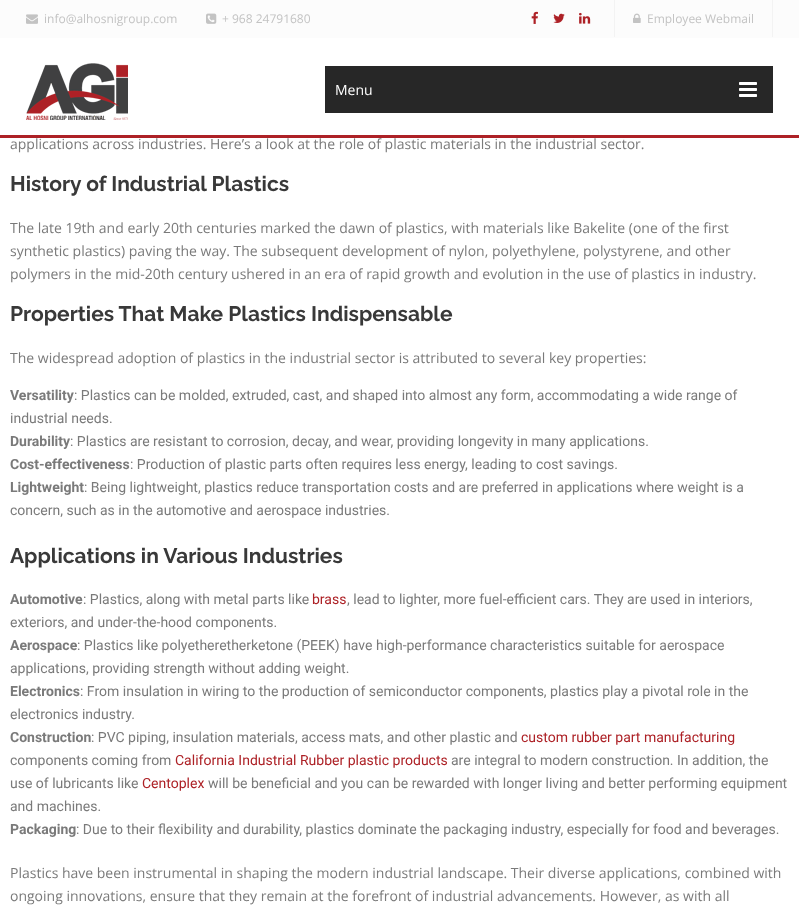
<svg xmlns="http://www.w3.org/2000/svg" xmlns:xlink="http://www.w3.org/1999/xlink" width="799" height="914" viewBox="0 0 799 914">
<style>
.cls-1{font:12px Open Sans;fill:#c3c3c3}
.cls-2{font:14px Open Sans;fill:#ffffff}
.cls-3{font:14px Open Sans;fill:#7a7a7a}
.cls-4{font:bold 21px Raleway;fill:#393939}
.cls-5{font:bold 14px Roboto;fill:#7a7a7a}
.cls-6{font:14px Roboto;fill:#7a7a7a}
.cls-7{font:14px Roboto;fill:#ad2126}
</style>
<rect width="100%" height="100%" fill="#ffffff"/>
<rect fill="#fcfcfc" x="0" y="0" width="799" height="38"/>
<image xlink:href="image0.png" x="26" y="14" width="12" height="10"/>
<image xlink:href="image1.png" x="206" y="13" width="11" height="11"/>
<image xlink:href="image2.png" x="531" y="11" width="7" height="13"/>
<image xlink:href="image3.png" x="553" y="13" width="12" height="10"/>
<image xlink:href="image4.png" x="579" y="12" width="12" height="12"/>
<rect fill="#f3f3f3" x="772" y="0" width="1" height="37"/>
<rect fill="#f3f3f3" x="614" y="0" width="1" height="37"/>
<image xlink:href="image5.png" x="633" y="13" width="8" height="10"/>
<rect fill="#ad2126" x="0" y="135" width="799" height="3"/>
<image xlink:href="image6.png" x="26" y="63" width="102" height="57"/>
<rect fill="#272727" x="325" y="66" width="448" height="47"/>
<image xlink:href="image7.png" x="739" y="82" width="18" height="15"/>
<text class="cls-1" x="44" y="23">info@alhosnigroup.com</text>
<text class="cls-1" x="222" y="23">+ 968 24791680</text>
<text class="cls-1" x="647" y="23">Employee Webmail</text>
<text class="cls-2" x="335" y="95">Menu</text>
<text class="cls-3" x="10" y="149">applications across industries. Here’s a look at the role of plastic materials in the industrial sector.</text>
<text class="cls-4" x="10" y="191">History of Industrial Plastics</text>
<text class="cls-3"><tspan x="10" y="233">The late 19th and early 20th centuries marked the dawn of plastics, with materials like Bakelite (one of the first</tspan><tspan x="10" y="256">synthetic plastics) paving the way. The subsequent development of nylon, polyethylene, polystyrene, and other</tspan><tspan x="10" y="279">polymers in the mid-20th century ushered in an era of rapid growth and evolution in the use of plastics in industry.</tspan></text>
<text class="cls-4" x="10" y="321">Properties That Make Plastics Indispensable</text>
<text class="cls-3" x="10" y="363">The widespread adoption of plastics in the industrial sector is attributed to several key properties:</text>
<text class="cls-5" x="10" y="400">Versatility</text>
<text class="cls-6" x="74" y="400">: Plastics can be molded, extruded, cast, and shaped into almost any form, accommodating a wide range of</text>
<text class="cls-6" x="10" y="423">industrial needs.</text>
<text class="cls-5" x="10" y="446">Durability</text>
<text class="cls-6" x="70" y="446">: Plastics are resistant to corrosion, decay, and wear, providing longevity in many applications.</text>
<text class="cls-5" x="10" y="469">Cost-effectiveness</text>
<text class="cls-6" x="130" y="469">: Production of plastic parts often requires less energy, leading to cost savings.</text>
<text class="cls-5" x="10" y="492">Lightweight</text>
<text class="cls-6" x="84" y="492">: Being lightweight, plastics reduce transportation costs and are preferred in applications where weight is a</text>
<text class="cls-6" x="10" y="515">concern, such as in the automotive and aerospace industries.</text>
<text class="cls-4" x="10" y="563">Applications in Various Industries</text>
<text class="cls-5" x="10" y="604">Automotive</text>
<text class="cls-6" x="83" y="604">: Plastics, along with metal parts like</text>
<text class="cls-7" x="312" y="604">brass</text>
<text class="cls-6" x="347" y="604">, lead to lighter, more fuel-efficient cars. They are used in interiors,</text>
<text class="cls-6" x="10" y="627">exteriors, and under-the-hood components.</text>
<text class="cls-5" x="10" y="650">Aerospace</text>
<text class="cls-6" x="77" y="650">: Plastics like polyetheretherketone (PEEK) have high-performance characteristics suitable for aerospace</text>
<text class="cls-6" x="10" y="673">applications, providing strength without adding weight.</text>
<text class="cls-5" x="10" y="696">Electronics</text>
<text class="cls-6" x="80" y="696">: From insulation in wiring to the production of semiconductor components, plastics play a pivotal role in the</text>
<text class="cls-6" x="10" y="719">electronics industry.</text>
<text class="cls-5" x="10" y="742">Construction</text>
<text class="cls-6" x="91" y="742">: PVC piping, insulation materials, access mats, and other plastic and</text>
<text class="cls-7" x="521" y="742">custom rubber part manufacturing</text>
<text class="cls-6" x="10" y="765">components coming from</text>
<text class="cls-7" x="175" y="765">California Industrial Rubber plastic products</text>
<text class="cls-6" x="451" y="765">are integral to modern construction. In addition, the</text>
<text class="cls-6" x="10" y="788">use of lubricants like</text>
<text class="cls-7" x="142" y="788">Centoplex</text>
<text class="cls-6" x="208" y="788">will be beneficial and you can be rewarded with longer living and better performing equipment</text>
<text class="cls-6" x="10" y="811">and machines.</text>
<text class="cls-5" x="10" y="834">Packaging</text>
<text class="cls-6" x="76" y="834">: Due to their flexibility and durability, plastics dominate the packaging industry, especially for food and beverages.</text>
<text class="cls-3"><tspan x="10" y="878">Plastics have been instrumental in shaping the modern industrial landscape. Their diverse applications, combined with</tspan><tspan x="10" y="901">ongoing innovations, ensure that they remain at the forefront of industrial advancements. However, as with all</tspan></text>
</svg>
